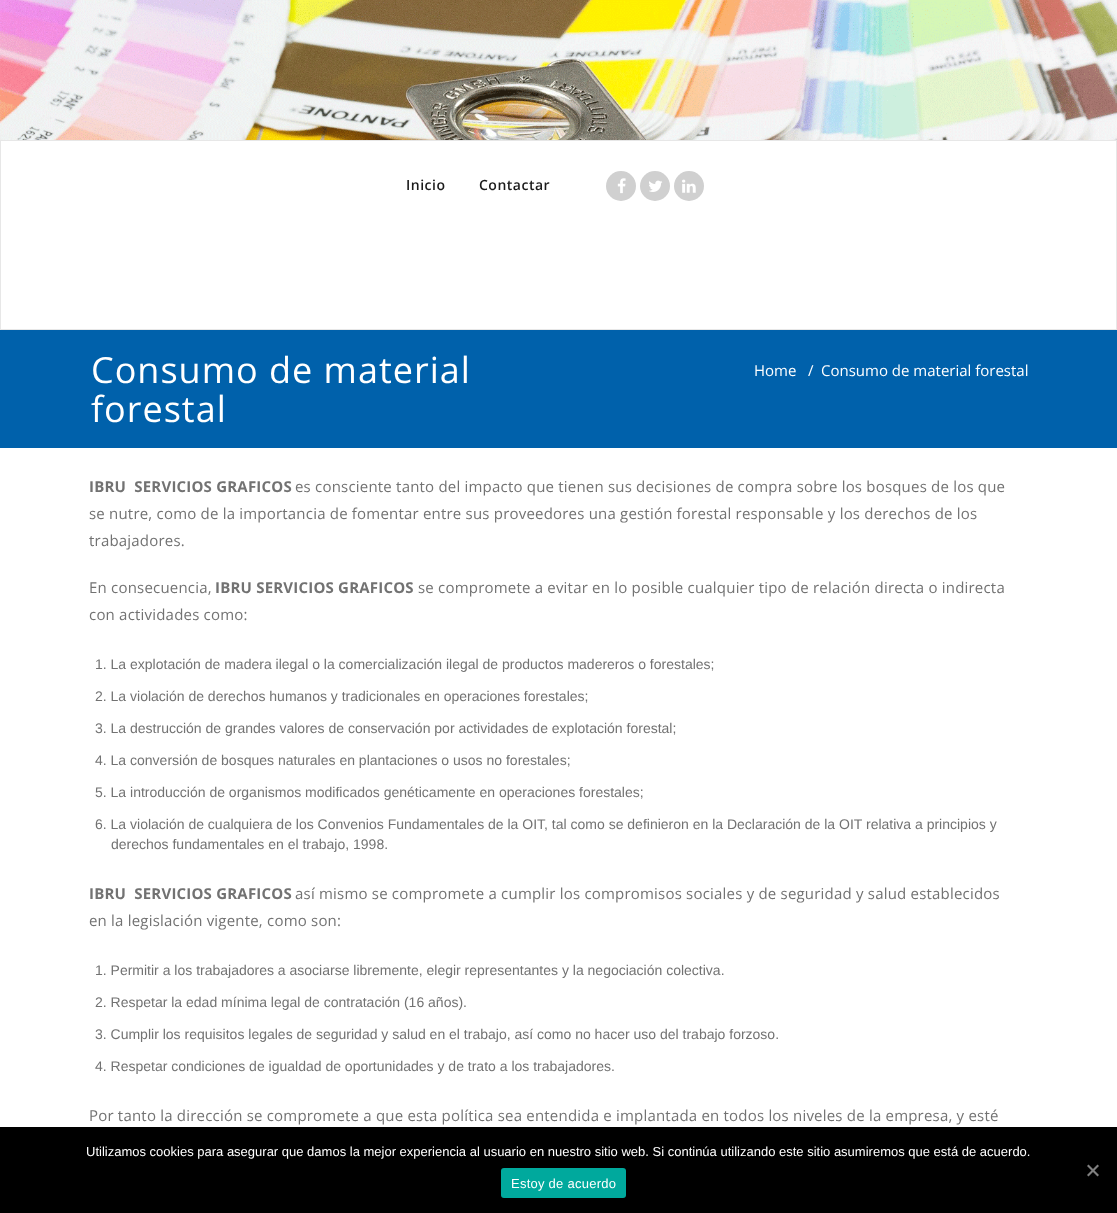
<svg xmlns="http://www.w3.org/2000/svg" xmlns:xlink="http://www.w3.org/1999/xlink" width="1117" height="1213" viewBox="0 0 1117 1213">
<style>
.cls-1{font:600 14px Open Sans;letter-spacing:0.5px;fill:#1b1b1b}
.cls-2{font:36px Open Sans;letter-spacing:1px;fill:#ffffff}
.cls-3{font:15px Open Sans;fill:#ffffff}
.cls-4{font:bold 15px Open Sans;letter-spacing:0.2px;fill:#727272}
.cls-5{font:15px Open Sans;letter-spacing:0.2px;fill:#727272}
.cls-6{font:14px Liberation Sans;fill:#727272}
.cls-7{font:13px Liberation Sans;fill:#ffffff}
.cls-8{font:13px Liberation Sans;letter-spacing:0.25px;fill:#ffffff}
</style>
<rect width="100%" height="100%" fill="#ffffff"/>
<image xlink:href="image0.png" x="0" y="0" width="1117" height="140"/>
<rect fill="none" stroke="#e7e7e7" x="0.5" y="140.5" width="1116" height="189"/>
<circle fill="#d0d0d0" cx="621" cy="186" r="15"/>
<image xlink:href="image1.png" x="617" y="178" width="9" height="16"/>
<circle fill="#d0d0d0" cx="655" cy="186" r="15"/>
<image xlink:href="image2.png" x="649" y="180" width="14" height="12"/>
<circle fill="#d0d0d0" cx="689" cy="186" r="15"/>
<image xlink:href="image3.png" x="682" y="179" width="14" height="14"/>
<rect fill="#0061ab" x="0" y="330" width="1117" height="118"/>
<rect fill="#000000" x="0" y="1127" width="1117" height="86"/>
<path fill="#808080" d="M1097.5 1164.5L1099 1166L1088.5 1176.5L1087 1175Z"/>
<path fill="#808080" d="M1087 1166L1088.5 1164.5L1099 1175L1097.5 1176.5Z"/>
<rect fill="#00a99d" x="501" y="1168" width="125" height="30" rx="3"/>
<text class="cls-1" x="406" y="190">Inicio</text>
<text class="cls-1" x="479" y="190">Contactar</text>
<text class="cls-2"><tspan x="91" y="383">Consumo de material</tspan><tspan x="91" y="422">forestal</tspan></text>
<text class="cls-3" x="754" y="376">Home</text>
<text class="cls-3" x="808" y="376">/</text>
<text class="cls-3" x="821" y="376">Consumo de material forestal</text>
<text class="cls-4" xml:space="preserve" x="89" y="492">IBRU  SERVICIOS GRAFICOS</text>
<text class="cls-5" x="295" y="492">es consciente tanto del impacto que tienen sus decisiones de compra sobre los bosques de los que</text>
<text class="cls-5"><tspan x="89" y="519">se nutre, como de la importancia de fomentar entre sus proveedores una gestión forestal responsable y los derechos de los</tspan><tspan x="89" y="546">trabajadores.</tspan></text>
<text class="cls-5" x="89" y="593">En consecuencia,</text>
<text class="cls-4" x="215" y="593">IBRU SERVICIOS GRAFICOS</text>
<text class="cls-5" x="418" y="593">se compromete a evitar en lo posible cualquier tipo de relación directa o indirecta</text>
<text class="cls-5" x="89" y="620">con actividades como:</text>
<text class="cls-6" x="95" y="669">1. La explotación de madera ilegal o la comercialización ilegal de productos madereros o forestales;</text>
<text class="cls-6" x="95" y="701">2. La violación de derechos humanos y tradicionales en operaciones forestales;</text>
<text class="cls-6" x="95" y="733">3. La destrucción de grandes valores de conservación por actividades de explotación forestal;</text>
<text class="cls-6" x="95" y="765">4. La conversión de bosques naturales en plantaciones o usos no forestales;</text>
<text class="cls-6" x="95" y="797">5. La introducción de organismos modificados genéticamente en operaciones forestales;</text>
<text class="cls-6" x="95" y="829">6. La violación de cualquiera de los Convenios Fundamentales de la OIT, tal como se definieron en la Declaración de la OIT relativa a principios y</text>
<text class="cls-6" x="111" y="849">derechos fundamentales en el trabajo, 1998.</text>
<text class="cls-4" xml:space="preserve" x="89" y="899">IBRU  SERVICIOS GRAFICOS</text>
<text class="cls-5" x="295" y="899">así mismo se compromete a cumplir los compromisos sociales y de seguridad y salud establecidos</text>
<text class="cls-5" x="89" y="926">en la legislación vigente, como son:</text>
<text class="cls-6" x="95" y="975">1. Permitir a los trabajadores a asociarse libremente, elegir representantes y la negociación colectiva.</text>
<text class="cls-6" x="95" y="1007">2. Respetar la edad mínima legal de contratación (16 años).</text>
<text class="cls-6" x="95" y="1039">3. Cumplir los requisitos legales de seguridad y salud en el trabajo, así como no hacer uso del trabajo forzoso.</text>
<text class="cls-6" x="95" y="1071">4. Respetar condiciones de igualdad de oportunidades y de trato a los trabajadores.</text>
<text class="cls-5" x="89" y="1121">Por tanto la dirección se compromete a que esta política sea entendida e implantada en todos los niveles de la empresa, y esté</text>
<text class="cls-7" x="86" y="1156">Utilizamos cookies para asegurar que damos la mejor experiencia al usuario en nuestro sitio web. Si continúa utilizando este sitio asumiremos que está de acuerdo.</text>
<text class="cls-8" x="511" y="1188">Estoy de acuerdo</text>
</svg>
